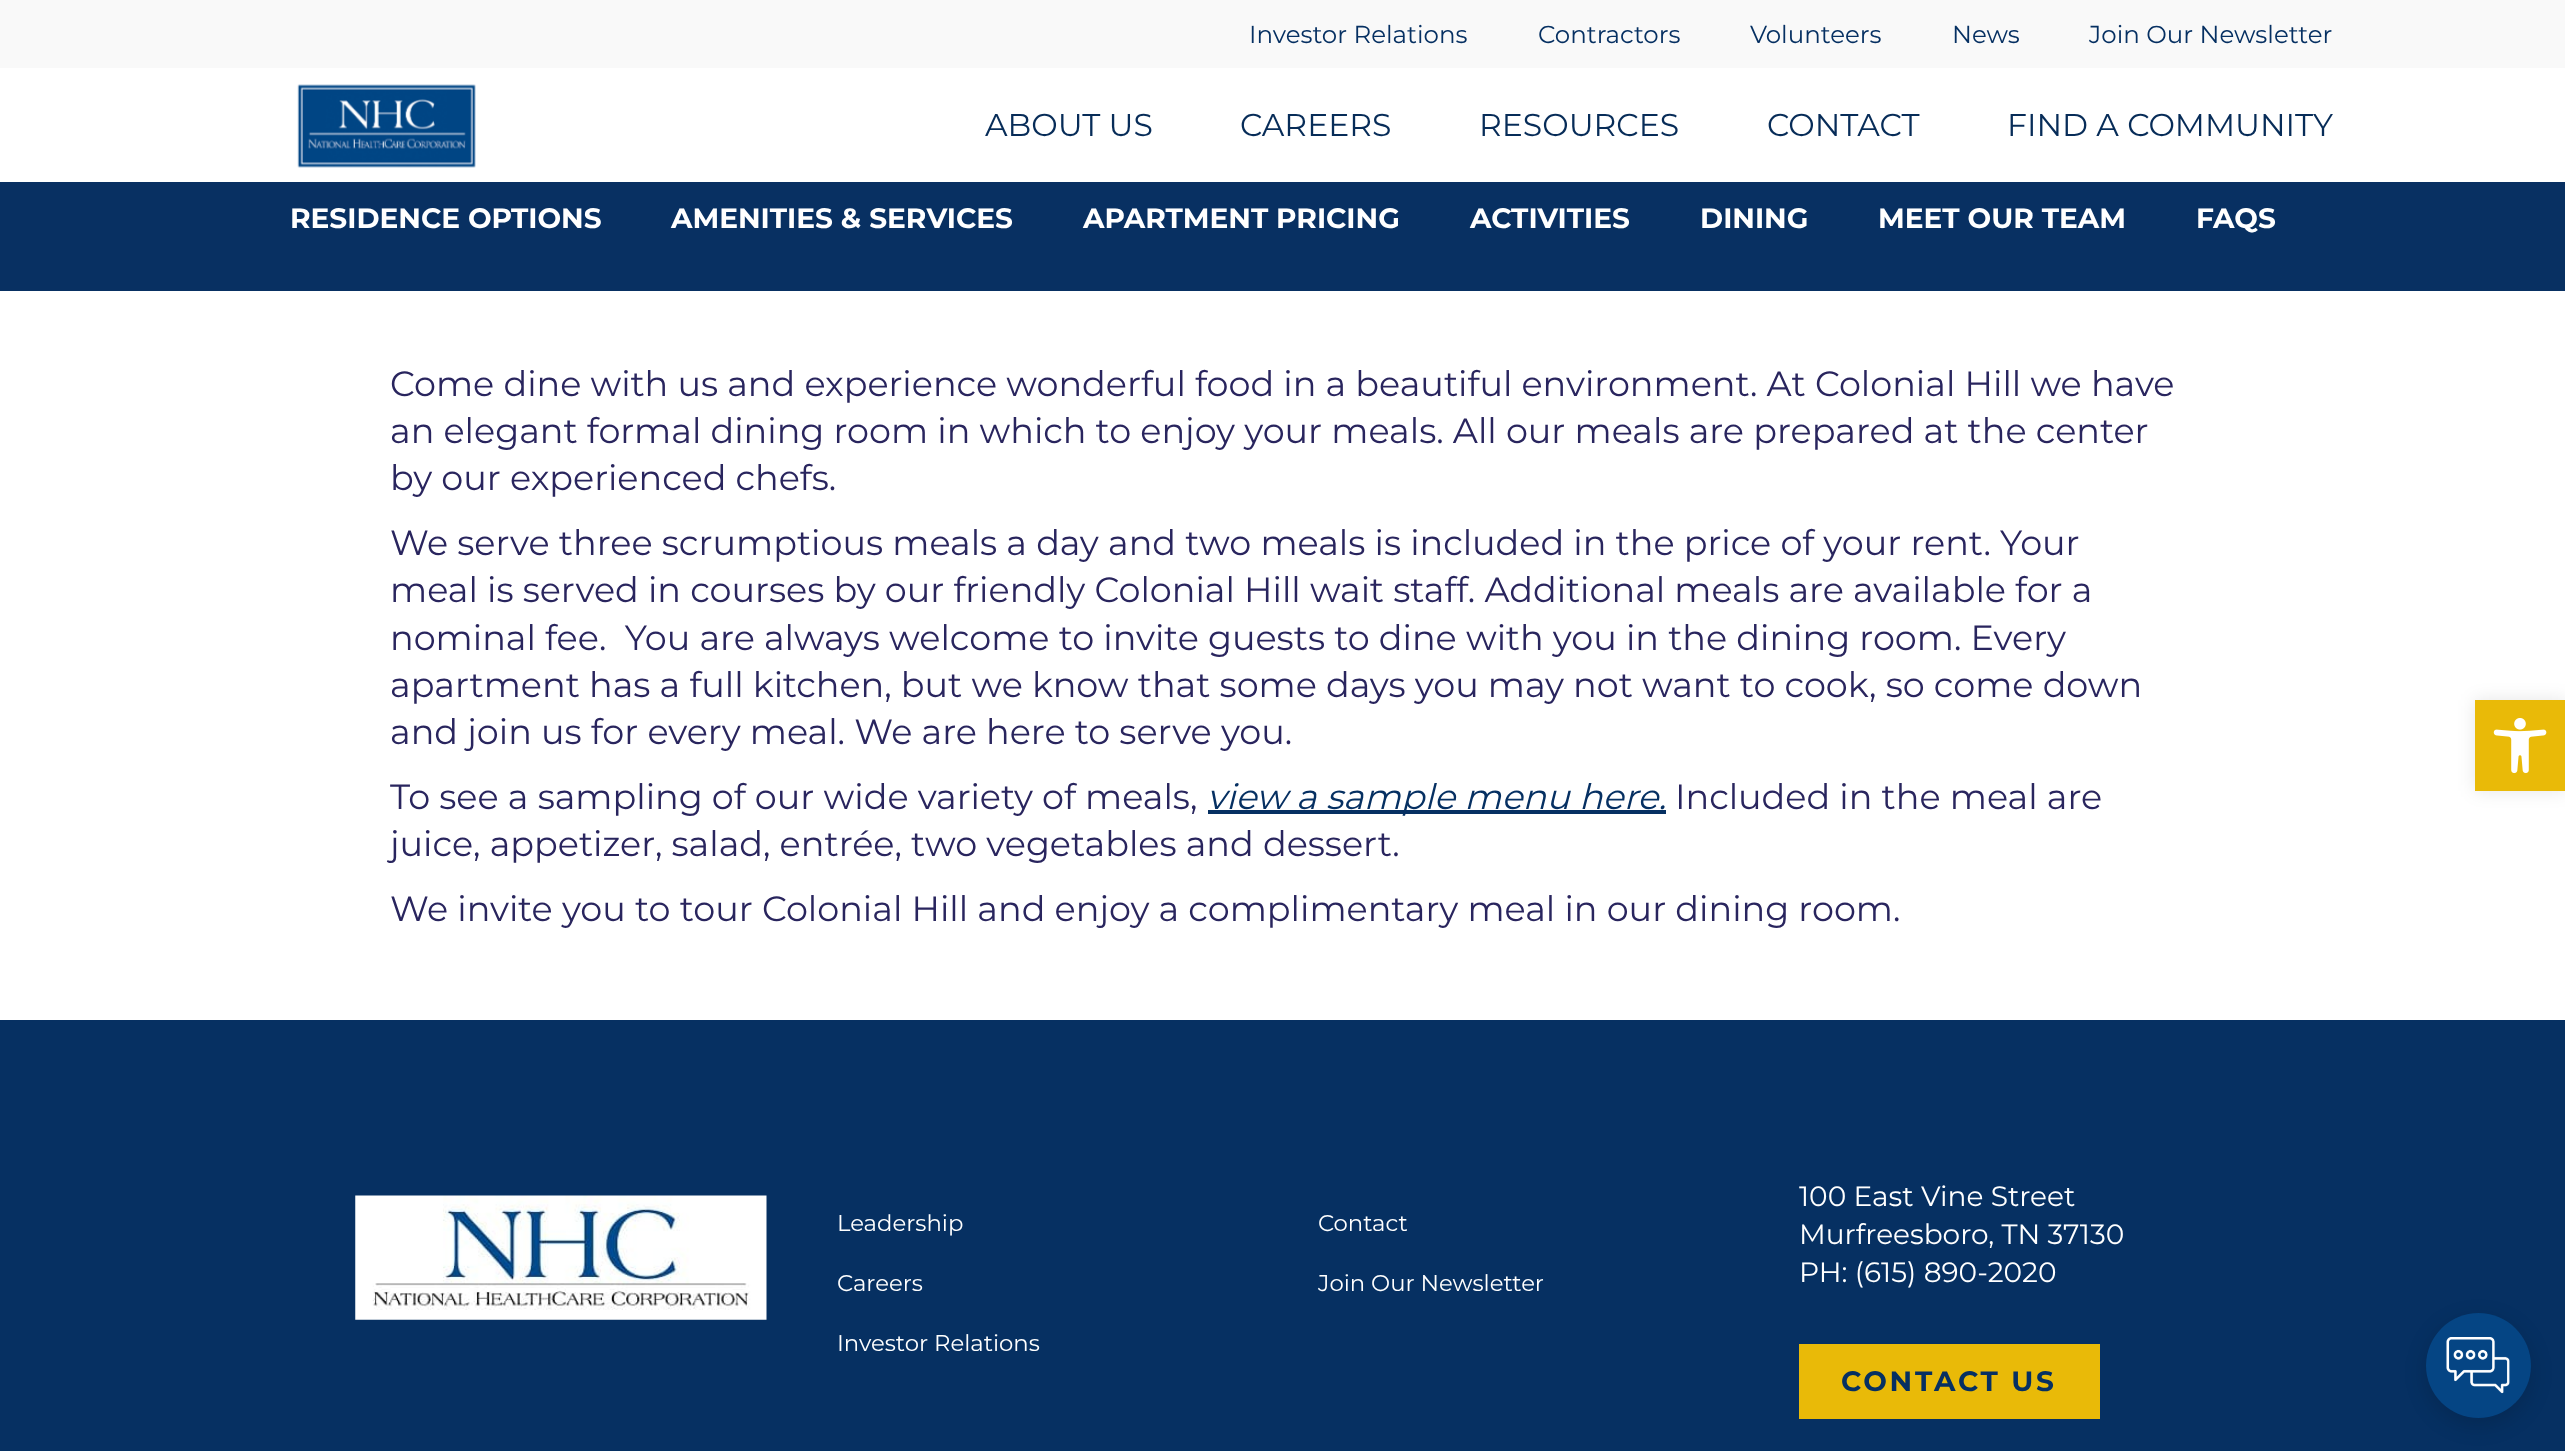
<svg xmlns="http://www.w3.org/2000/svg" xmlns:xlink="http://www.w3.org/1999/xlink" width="2565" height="1451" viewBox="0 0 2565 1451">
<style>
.cls-1{font:24.5px Montserrat;fill:#063062}
.cls-2{font:31.5px Montserrat;fill:#072c58}
.cls-3{font:bold 28px Montserrat;fill:#ffffff}
.cls-4{font:35px Montserrat;fill:#29255e}
.cls-5{font:italic 35px Montserrat;fill:#063062}
.cls-6{font:22.75px Montserrat;fill:#ffffff}
.cls-7{font:28px Montserrat;fill:#ffffff}
.cls-8{font:bold 28px Montserrat;letter-spacing:2.75px;fill:#063062}
</style>
<rect width="100%" height="100%" fill="#ffffff"/>
<rect fill="#f9f9f9" x="0" y="0" width="2565" height="68"/>
<image xlink:href="image0.png" x="297" y="84" width="179" height="84"/>
<rect fill="#083062" x="0" y="182" width="2565" height="109"/>
<rect fill="#063062" x="1208" y="810" width="458" height="4"/>
<rect fill="#063062" x="0" y="1020" width="2565" height="431"/>
<image xlink:href="image1.png" x="355" y="1195" width="412" height="125"/>
<rect fill="#e9ba08" x="1799" y="1344" width="301" height="75"/>
<rect fill="#000000" fill-opacity="0.1" filter="blur(9px)" x="2475" y="700" width="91" height="91"/>
<rect fill="#e9ba08" x="2475" y="700" width="90" height="91"/>
<image xlink:href="image2.png" x="2493" y="718" width="54" height="56"/>
<rect fill="#000000" fill-opacity="0.15" filter="blur(10.5px)" x="2426" y="1320" width="105" height="105" rx="52.5"/>
<circle fill="#054584" cx="2478.5" cy="1365.5" r="52.5"/>
<image xlink:href="image3.png" x="2446" y="1337" width="64" height="57"/>
<text class="cls-1" x="1249" y="43">Investor Relations</text>
<text class="cls-1" x="1538" y="43">Contractors</text>
<text class="cls-1" x="1750" y="43">Volunteers</text>
<text class="cls-1" x="1952" y="43">News</text>
<text class="cls-1" x="2089" y="43">Join Our Newsletter</text>
<text class="cls-2" x="985" y="136">ABOUT US</text>
<text class="cls-2" x="1240" y="136">CAREERS</text>
<text class="cls-2" x="1479" y="136">RESOURCES</text>
<text class="cls-2" x="1767" y="136">CONTACT</text>
<text class="cls-2" x="2007" y="136">FIND A COMMUNITY</text>
<text class="cls-3" x="290" y="228">RESIDENCE OPTIONS</text>
<text class="cls-3" x="671" y="228">AMENITIES &amp; SERVICES</text>
<text class="cls-3" x="1083" y="228">APARTMENT PRICING</text>
<text class="cls-3" x="1470" y="228">ACTIVITIES</text>
<text class="cls-3" x="1700" y="228">DINING</text>
<text class="cls-3" x="1878" y="228">MEET OUR TEAM</text>
<text class="cls-3" x="2196" y="228">FAQS</text>
<text class="cls-4" xml:space="preserve"><tspan x="390" y="396">Come dine with us and experience wonderful food in a beautiful environment. At Colonial Hill we have</tspan><tspan x="390" y="443">an elegant formal dining room in which to enjoy your meals. All our meals are prepared at the center</tspan><tspan x="390" y="490">by our experienced chefs.</tspan><tspan x="390" y="555">We serve three scrumptious meals a day and two meals is included in the price of your rent. Your</tspan><tspan x="390" y="602">meal is served in courses by our friendly Colonial Hill wait staff. Additional meals are available for a</tspan><tspan x="390" y="650">nominal fee.  You are always welcome to invite guests to dine with you in the dining room. Every</tspan><tspan x="390" y="697">apartment has a full kitchen, but we know that some days you may not want to cook, so come down</tspan><tspan x="390" y="744">and join us for every meal. We are here to serve you.</tspan><tspan x="390" y="809">To see a sampling of our wide variety of meals,</tspan></text>
<text class="cls-5" x="1207" y="809">view a sample menu here.</text>
<text class="cls-4" x="1675" y="809">Included in the meal are</text>
<text class="cls-4"><tspan x="390" y="856">juice, appetizer, salad, entrée, two vegetables and dessert.</tspan><tspan x="390" y="921">We invite you to tour Colonial Hill and enjoy a complimentary meal in our dining room.</tspan></text>
<text class="cls-6" x="837" y="1231">Leadership</text>
<text class="cls-6" x="837" y="1291">Careers</text>
<text class="cls-6" x="837" y="1351">Investor Relations</text>
<text class="cls-6" x="1318" y="1231">Contact</text>
<text class="cls-6" x="1318" y="1291">Join Our Newsletter</text>
<text class="cls-7"><tspan x="1799" y="1206">100 East Vine Street</tspan><tspan x="1799" y="1244">Murfreesboro, TN 37130</tspan><tspan x="1799" y="1282">PH: (615) 890-2020</tspan></text>
<text class="cls-8" x="1841" y="1391">CONTACT US</text>
</svg>
